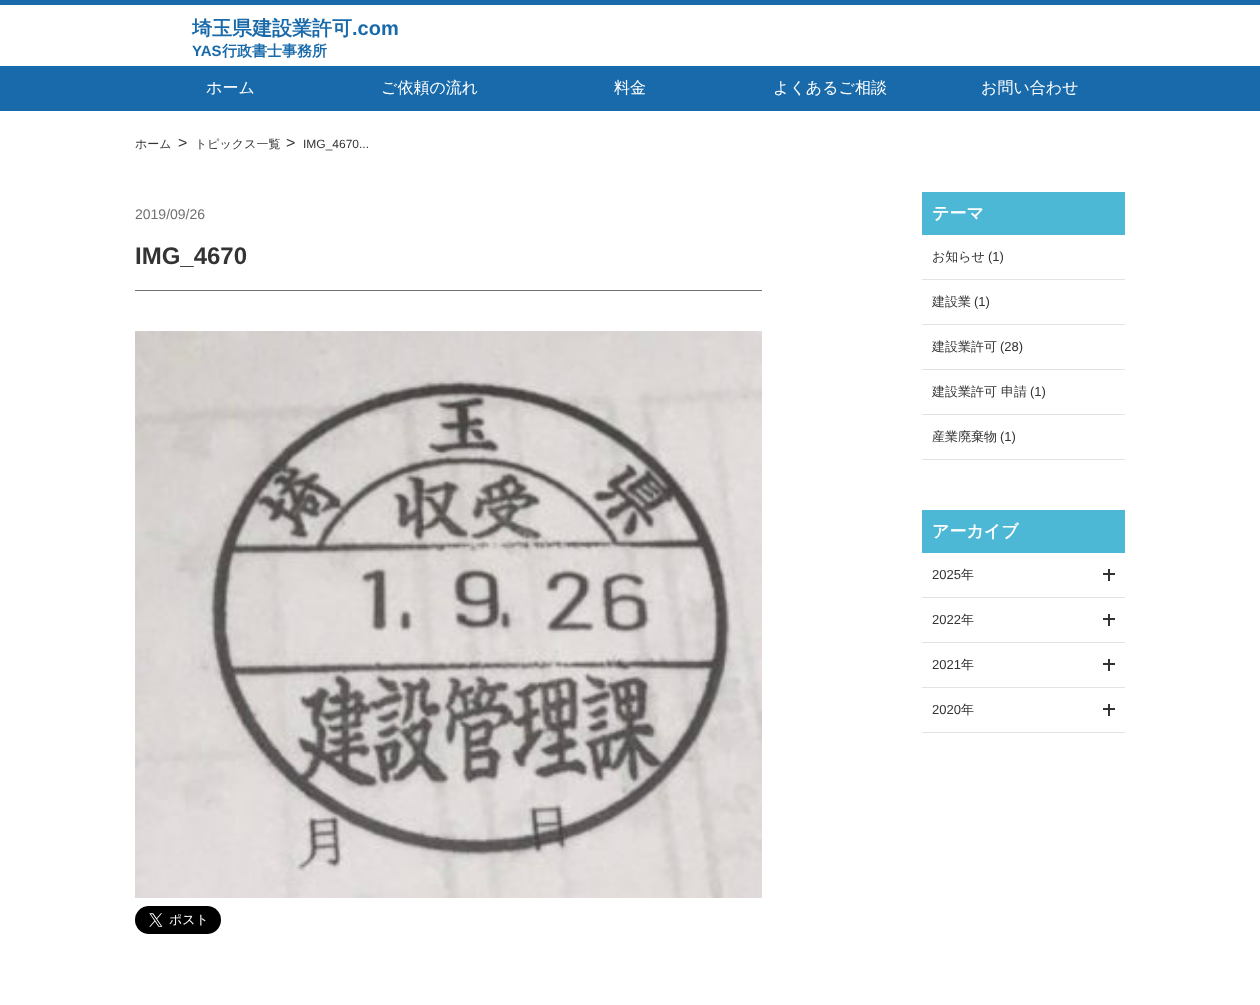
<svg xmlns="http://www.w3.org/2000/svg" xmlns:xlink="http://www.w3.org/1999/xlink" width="1260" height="1005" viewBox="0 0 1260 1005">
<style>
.cls-1{font:bold 20px WenQuanYi Zen Hei;fill:#186aab}
.cls-2{font:bold 20px Liberation Sans;fill:#186aab}
.cls-3{font:bold 15px Liberation Sans;fill:#186aab}
.cls-4{font:bold 15px WenQuanYi Zen Hei;fill:#186aab}
.cls-5{font:500 16px WenQuanYi Zen Hei;fill:#ffffff}
.cls-6{font:500 12px WenQuanYi Zen Hei;fill:#333333}
.cls-7{font:16px Liberation Sans;fill:#333333}
.cls-8{font:12px Liberation Sans;fill:#333333}
.cls-9{font:14px Liberation Sans;fill:#707070}
.cls-10{font:bold 24px Liberation Sans;fill:#333333}
.cls-11{font:bold 17px WenQuanYi Zen Hei;fill:#ffffff}
.cls-12{font:500 13px WenQuanYi Zen Hei;fill:#333333}
.cls-13{font:13px Liberation Sans;fill:#333333}
</style>
<rect width="100%" height="100%" fill="#ffffff"/>
<rect fill="#186aab" x="0" y="0" width="1260" height="5"/>
<rect fill="#186aab" x="0" y="66" width="1260" height="45"/>
<rect fill="#707070" x="135" y="290" width="627" height="1"/>
<image xlink:href="image0.png" x="135" y="331" width="627" height="567"/>
<image xlink:href="image1.png" x="135" y="906" width="86" height="28"/>
<rect fill="#4db7d6" x="922" y="192" width="203" height="43"/>
<rect fill="#e3e3e3" x="922" y="279" width="203" height="1"/>
<rect fill="#e3e3e3" x="922" y="324" width="203" height="1"/>
<rect fill="#e3e3e3" x="922" y="369" width="203" height="1"/>
<rect fill="#e3e3e3" x="922" y="414" width="203" height="1"/>
<rect fill="#e3e3e3" x="922" y="459" width="203" height="1"/>
<rect fill="#4db7d6" x="922" y="510" width="203" height="43"/>
<rect fill="#e3e3e3" x="922" y="597" width="203" height="1"/>
<rect fill="#333333" x="1103" y="573" width="12" height="2"/>
<rect fill="#333333" x="1108" y="569" width="2" height="12"/>
<rect fill="#e3e3e3" x="922" y="642" width="203" height="1"/>
<rect fill="#333333" x="1103" y="618" width="12" height="2"/>
<rect fill="#333333" x="1108" y="614" width="2" height="12"/>
<rect fill="#e3e3e3" x="922" y="687" width="203" height="1"/>
<rect fill="#333333" x="1103" y="663" width="12" height="2"/>
<rect fill="#333333" x="1108" y="659" width="2" height="12"/>
<rect fill="#e3e3e3" x="922" y="732" width="203" height="1"/>
<rect fill="#333333" x="1103" y="708" width="12" height="2"/>
<rect fill="#333333" x="1108" y="704" width="2" height="12"/>
<text class="cls-1" x="192" y="35">埼玉県建設業許可</text>
<text class="cls-2" x="352" y="35">.com</text>
<text class="cls-3" x="192" y="56">YAS</text>
<text class="cls-4" x="222" y="56">行政書士事務所</text>
<text class="cls-5" x="206" y="93">ホーム</text>
<text class="cls-5" x="381" y="93">ご依頼の流れ</text>
<text class="cls-5" x="614" y="93">料金</text>
<text class="cls-5" x="773" y="93">よくあるご相談</text>
<text class="cls-5" x="981" y="93">お問い合わせ</text>
<text class="cls-6" x="135" y="148">ホーム</text>
<text class="cls-7" x="178" y="148">&gt;</text>
<text class="cls-6" x="195" y="148">トピックス一覧</text>
<text class="cls-7" x="286" y="148">&gt;</text>
<text class="cls-8" x="303" y="148">IMG_4670...</text>
<text class="cls-9" x="135" y="219">2019/09/26</text>
<text class="cls-10" x="135" y="264">IMG_4670</text>
<text class="cls-11" x="932" y="219">テーマ</text>
<text class="cls-12" x="932" y="261">お知らせ</text>
<text class="cls-13" x="988" y="261">(1)</text>
<text class="cls-12" x="932" y="306">建設業</text>
<text class="cls-13" x="974" y="306">(1)</text>
<text class="cls-12" x="932" y="351">建設業許可</text>
<text class="cls-13" x="1000" y="351">(28)</text>
<text class="cls-12" x="932" y="396">建設業許可 申請</text>
<text class="cls-13" x="1030" y="396">(1)</text>
<text class="cls-12" x="932" y="441">産業廃棄物</text>
<text class="cls-13" x="1000" y="441">(1)</text>
<text class="cls-11" x="932" y="537">アーカイブ</text>
<text class="cls-13" x="932" y="579">2025</text>
<text class="cls-12" x="961" y="579">年</text>
<text class="cls-13" x="932" y="624">2022</text>
<text class="cls-12" x="961" y="624">年</text>
<text class="cls-13" x="932" y="669">2021</text>
<text class="cls-12" x="961" y="669">年</text>
<text class="cls-13" x="932" y="714">2020</text>
<text class="cls-12" x="961" y="714">年</text>
</svg>
